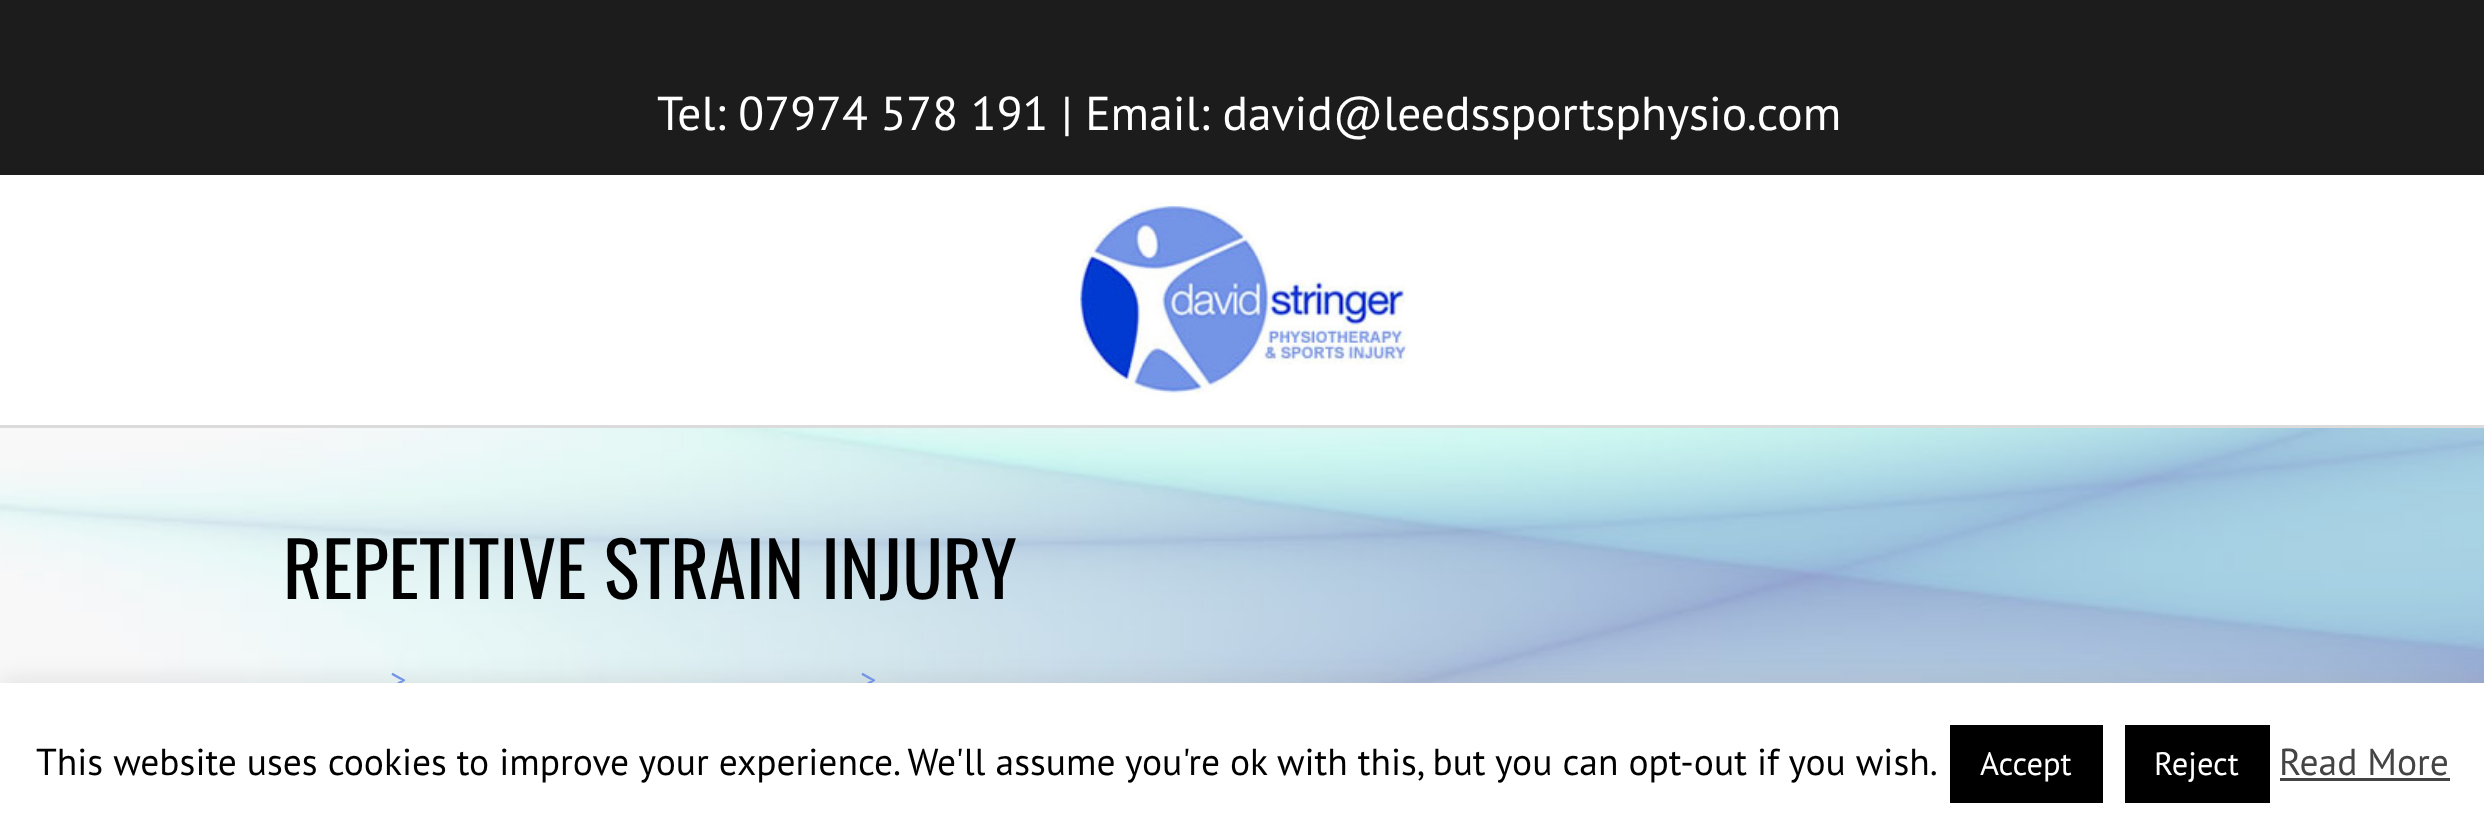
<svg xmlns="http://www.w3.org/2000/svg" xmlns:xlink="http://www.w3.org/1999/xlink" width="2484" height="832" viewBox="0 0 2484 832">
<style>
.cls-1{font:47.5px PT Sans;fill:#ffffff}
.cls-2{font:75px Oswald;fill:#000000}
.cls-3{font:32.5px PT Sans;fill:#7495e6}
.cls-4{font:37.5px PT Sans;fill:#000000}
.cls-5{font:32.5px PT Sans;fill:#ffffff}
.cls-6{font:37.5px PT Sans;fill:#444444}
</style>
<rect width="100%" height="100%" fill="#ffffff"/>
<rect fill="#dbdbdb" x="0" y="425" width="2484" height="3"/>
<rect fill="#1c1c1c" x="0" y="0" width="2484" height="175"/>
<image xlink:href="image0.png" x="1074" y="202" width="335" height="196"/>
<image xlink:href="image1.png" x="0" y="428" width="2484" height="255"/>
<rect fill="#acabab" fill-opacity="0.3" filter="blur(12.5px)" x="0" y="680" width="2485" height="150"/>
<text class="cls-1" x="657" y="130">Tel: 07974 578 191 | Email: david@leedssportsphysio.com</text>
<text class="cls-2" x="283" y="599">REPETITIVE STRAIN INJURY</text>
<text class="cls-3" x="390" y="691">&gt;</text>
<text class="cls-3" x="860" y="691">&gt;</text>
<rect fill="#ffffff" x="0" y="683" width="2484" height="149"/>
<text class="cls-4" x="36" y="775">This website uses cookies to improve your experience. We'll assume you're ok with this, but you can opt-out if you wish.</text>
<rect fill="#000000" x="1950" y="725" width="153" height="78"/>
<text class="cls-5" x="1980" y="775">Accept</text>
<rect fill="#000000" x="2125" y="725" width="145" height="78"/>
<text class="cls-5" x="2154" y="775">Reject</text>
<text class="cls-6" x="2279" y="775">Read More</text>
<rect fill="#444444" x="2280" y="778" width="170" height="3"/>
</svg>
